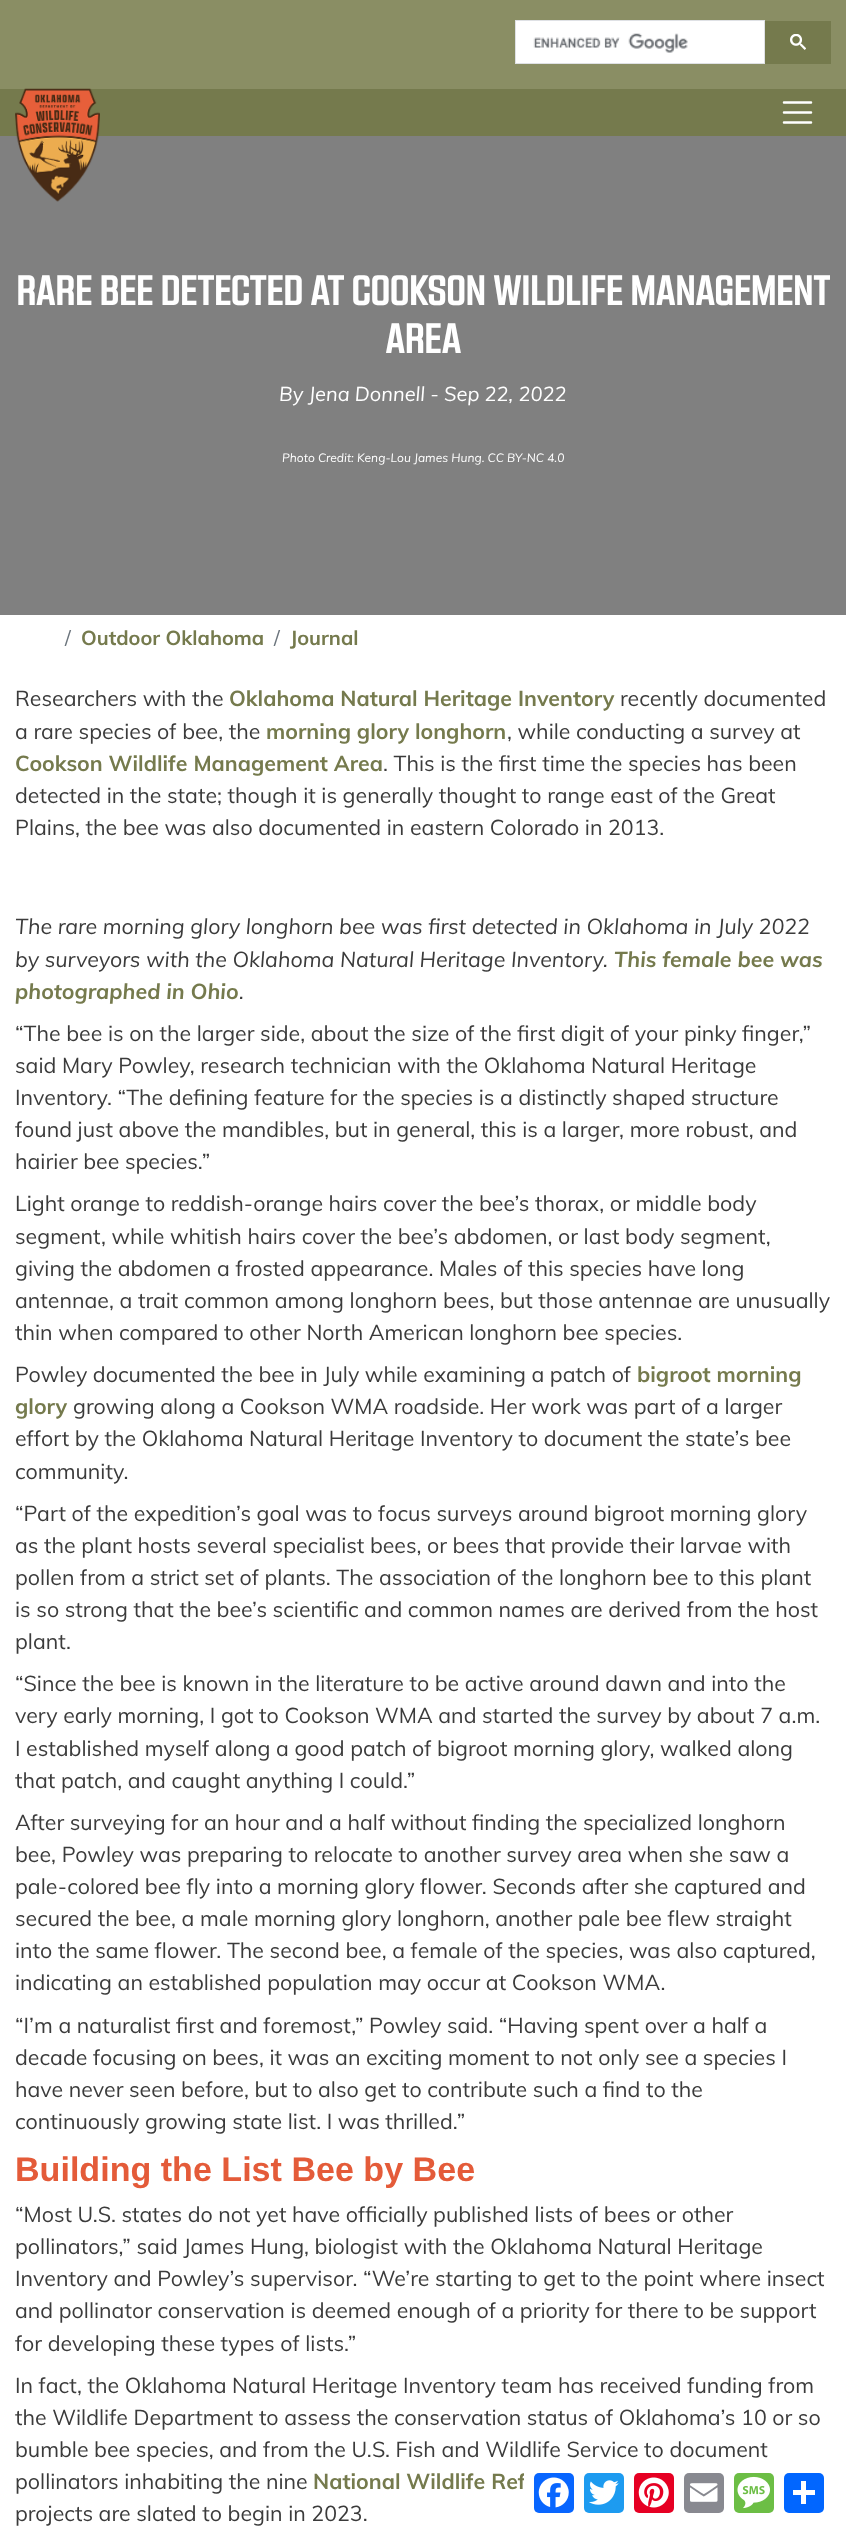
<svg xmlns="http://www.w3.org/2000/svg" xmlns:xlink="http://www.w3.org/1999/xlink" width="846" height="2535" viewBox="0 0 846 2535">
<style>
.cls-1{font:bold 40.2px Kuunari;fill:#ffffff}
.cls-2{font:italic 20px Muli;fill:#ffffff}
.cls-3{font:italic 12px Muli;fill:#ffffff}
.cls-4{font:20px Muli;fill:#6c757d}
.cls-5{font:bold 20px Muli;fill:#757a4d}
.cls-6{font:21.4px Muli;fill:#3b3b3b}
.cls-7{font:bold 21.4px Muli;fill:#757a4d}
.cls-8{font:italic 21.4px Muli;fill:#3b3b3b}
.cls-9{font:italic bold 21.4px Muli;fill:#757a4d}
.cls-10{font:bold 34.1px Liberation Sans;fill:#e45b39}
</style>
<rect width="100%" height="100%" fill="#ffffff"/>
<rect fill="#8a8e64" x="0" y="0" width="846" height="89"/>
<rect fill="#ffffff" stroke="#dfe1e5" x="515.5" y="20.5" width="249" height="43"/>
<image xlink:href="image0.png" x="533" y="33" width="155" height="20"/>
<rect fill="#757a4d" x="765" y="21" width="66" height="43"/>
<image xlink:href="image1.png" x="790" y="34" width="16" height="16"/>
<rect fill="#757a4d" x="0" y="89" width="846" height="47"/>
<rect fill="#808080" x="0" y="136" width="846" height="479"/>
<image xlink:href="image2.png" x="15" y="88" width="85" height="114"/>
<path fill="none" stroke="#ffffff" stroke-width="2.5" stroke-linecap="round" d="M784 102.5H811M784 112.5H811M784 122.5H811"/>
<text class="cls-1" x="16" y="305">RARE BEE DETECTED AT COOKSON WILDLIFE MANAGEMENT</text>
<text class="cls-1" x="385" y="353">AREA</text>
<text class="cls-2" x="279" y="401">By Jena Donnell - Sep 22, 2022</text>
<text class="cls-3" x="282" y="462">Photo Credit: Keng-Lou James Hung. CC BY-NC 4.0</text>
<text class="cls-4" x="65" y="645">/</text>
<text class="cls-5" x="81" y="645">Outdoor Oklahoma</text>
<text class="cls-4" x="274" y="645">/</text>
<text class="cls-5" x="290" y="645">Journal</text>
<text class="cls-6" x="15" y="706">Researchers with the</text>
<text class="cls-7" x="229" y="706">Oklahoma Natural Heritage Inventory</text>
<text class="cls-6" x="620" y="706">recently documented</text>
<text class="cls-6" x="15" y="739">a rare species of bee, the</text>
<text class="cls-7" x="266" y="739">morning glory longhorn</text>
<text class="cls-6" x="507" y="739">, while conducting a survey at</text>
<text class="cls-7" x="15" y="771">Cookson Wildlife Management Area</text>
<text class="cls-6" x="383" y="771">. This is the first time the species has been</text>
<text class="cls-6"><tspan x="15" y="803">detected in the state; though it is generally thought to range east of the Great</tspan><tspan x="15" y="835">Plains, the bee was also documented in eastern Colorado in 2013.</tspan></text>
<text class="cls-8"><tspan x="15" y="934">The rare morning glory longhorn bee was first detected in Oklahoma in July 2022</tspan><tspan x="15" y="967">by surveyors with the Oklahoma Natural Heritage Inventory.</tspan></text>
<text class="cls-9" x="614" y="967">This female bee was</text>
<text class="cls-9" x="15" y="999">photographed in Ohio</text>
<text class="cls-8" x="239" y="999">.</text>
<text class="cls-6"><tspan x="15" y="1041">“The bee is on the larger side, about the size of the first digit of your pinky finger,”</tspan><tspan x="15" y="1073">said Mary Powley, research technician with the Oklahoma Natural Heritage</tspan><tspan x="15" y="1105">Inventory. “The defining feature for the species is a distinctly shaped structure</tspan><tspan x="15" y="1137">found just above the mandibles, but in general, this is a larger, more robust, and</tspan><tspan x="15" y="1169">hairier bee species.”</tspan><tspan x="15" y="1211">Light orange to reddish-orange hairs cover the bee’s thorax, or middle body</tspan><tspan x="15" y="1244">segment, while whitish hairs cover the bee’s abdomen, or last body segment,</tspan><tspan x="15" y="1276">giving the abdomen a frosted appearance. Males of this species have long</tspan><tspan x="15" y="1308">antennae, a trait common among longhorn bees, but those antennae are unusually</tspan><tspan x="15" y="1340">thin when compared to other North American longhorn bee species.</tspan><tspan x="15" y="1382">Powley documented the bee in July while examining a patch of</tspan></text>
<text class="cls-7" x="637" y="1382">bigroot morning</text>
<text class="cls-7" x="15" y="1414">glory</text>
<text class="cls-6" x="73" y="1414">growing along a Cookson WMA roadside. Her work was part of a larger</text>
<text class="cls-6"><tspan x="15" y="1446">effort by the Oklahoma Natural Heritage Inventory to document the state’s bee</tspan><tspan x="15" y="1479">community.</tspan><tspan x="15" y="1521">“Part of the expedition’s goal was to focus surveys around bigroot morning glory</tspan><tspan x="15" y="1553">as the plant hosts several specialist bees, or bees that provide their larvae with</tspan><tspan x="15" y="1585">pollen from a strict set of plants. The association of the longhorn bee to this plant</tspan><tspan x="15" y="1617">is so strong that the bee’s scientific and common names are derived from the host</tspan><tspan x="15" y="1649">plant.</tspan><tspan x="15" y="1691">“Since the bee is known in the literature to be active around dawn and into the</tspan><tspan x="15" y="1723">very early morning, I got to Cookson WMA and started the survey by about 7 a.m.</tspan><tspan x="15" y="1756">I established myself along a good patch of bigroot morning glory, walked along</tspan><tspan x="15" y="1788">that patch, and caught anything I could.”</tspan><tspan x="15" y="1830">After surveying for an hour and a half without finding the specialized longhorn</tspan><tspan x="15" y="1862">bee, Powley was preparing to relocate to another survey area when she saw a</tspan><tspan x="15" y="1894">pale-colored bee fly into a morning glory flower. Seconds after she captured and</tspan><tspan x="15" y="1926">secured the bee, a male morning glory longhorn, another pale bee flew straight</tspan><tspan x="15" y="1958">into the same flower. The second bee, a female of the species, was also captured,</tspan><tspan x="15" y="1990">indicating an established population may occur at Cookson WMA.</tspan></text>
<text class="cls-6"><tspan x="15" y="2033">“I’m a naturalist first and foremost,” Powley said. “Having spent over a half a</tspan><tspan x="15" y="2065">decade focusing on bees, it was an exciting moment to not only see a species I</tspan><tspan x="15" y="2097">have never seen before, but to also get to contribute such a find to the</tspan><tspan x="15" y="2129">continuously growing state list. I was thrilled.”</tspan></text>
<text class="cls-10" x="15" y="2181">Building the List Bee by Bee</text>
<text class="cls-6"><tspan x="15" y="2222">“Most U.S. states do not yet have officially published lists of bees or other</tspan><tspan x="15" y="2254">pollinators,” said James Hung, biologist with the Oklahoma Natural Heritage</tspan><tspan x="15" y="2286">Inventory and Powley’s supervisor. “We’re starting to get to the point where insect</tspan><tspan x="15" y="2318">and pollinator conservation is deemed enough of a priority for there to be support</tspan><tspan x="15" y="2351">for developing these types of lists.”</tspan><tspan x="15" y="2393">In fact, the Oklahoma Natural Heritage Inventory team has received funding from</tspan><tspan x="15" y="2425">the Wildlife Department to assess the conservation status of Oklahoma’s 10 or so</tspan><tspan x="15" y="2457">bumble bee species, and from the U.S. Fish and Wildlife Service to document</tspan><tspan x="15" y="2489">pollinators inhabiting the nine</tspan></text>
<text class="cls-7" x="313" y="2489">National Wildlife Ref</text>
<text class="cls-6" x="15" y="2521">projects are slated to begin in 2023.</text>
<rect fill="#ffffff" x="524" y="2463" width="310" height="60" rx="8"/>
<rect fill="#0866ff" x="534" y="2473" width="40" height="40" rx="5"/>
<image xlink:href="image3.png" x="538" y="2477" width="31" height="31"/>
<rect fill="#1d9bf0" x="584" y="2473" width="40" height="40" rx="5"/>
<image xlink:href="image4.png" x="589" y="2480" width="30" height="25"/>
<rect fill="#e60023" x="634" y="2473" width="40" height="40" rx="5"/>
<image xlink:href="image5.png" x="638" y="2477" width="31" height="31"/>
<rect fill="#888990" x="684" y="2473" width="40" height="40" rx="5"/>
<image xlink:href="image6.png" x="690" y="2483" width="28" height="19"/>
<rect fill="#6cbe45" x="734" y="2473" width="40" height="40" rx="5"/>
<image xlink:href="image7.png" x="737" y="2476" width="33" height="33"/>
<rect fill="#0166ff" x="784" y="2473" width="40" height="40" rx="5"/>
<rect fill="#ffffff" x="801" y="2481" width="5" height="23"/>
<rect fill="#ffffff" x="793" y="2490" width="22" height="5"/>
</svg>
